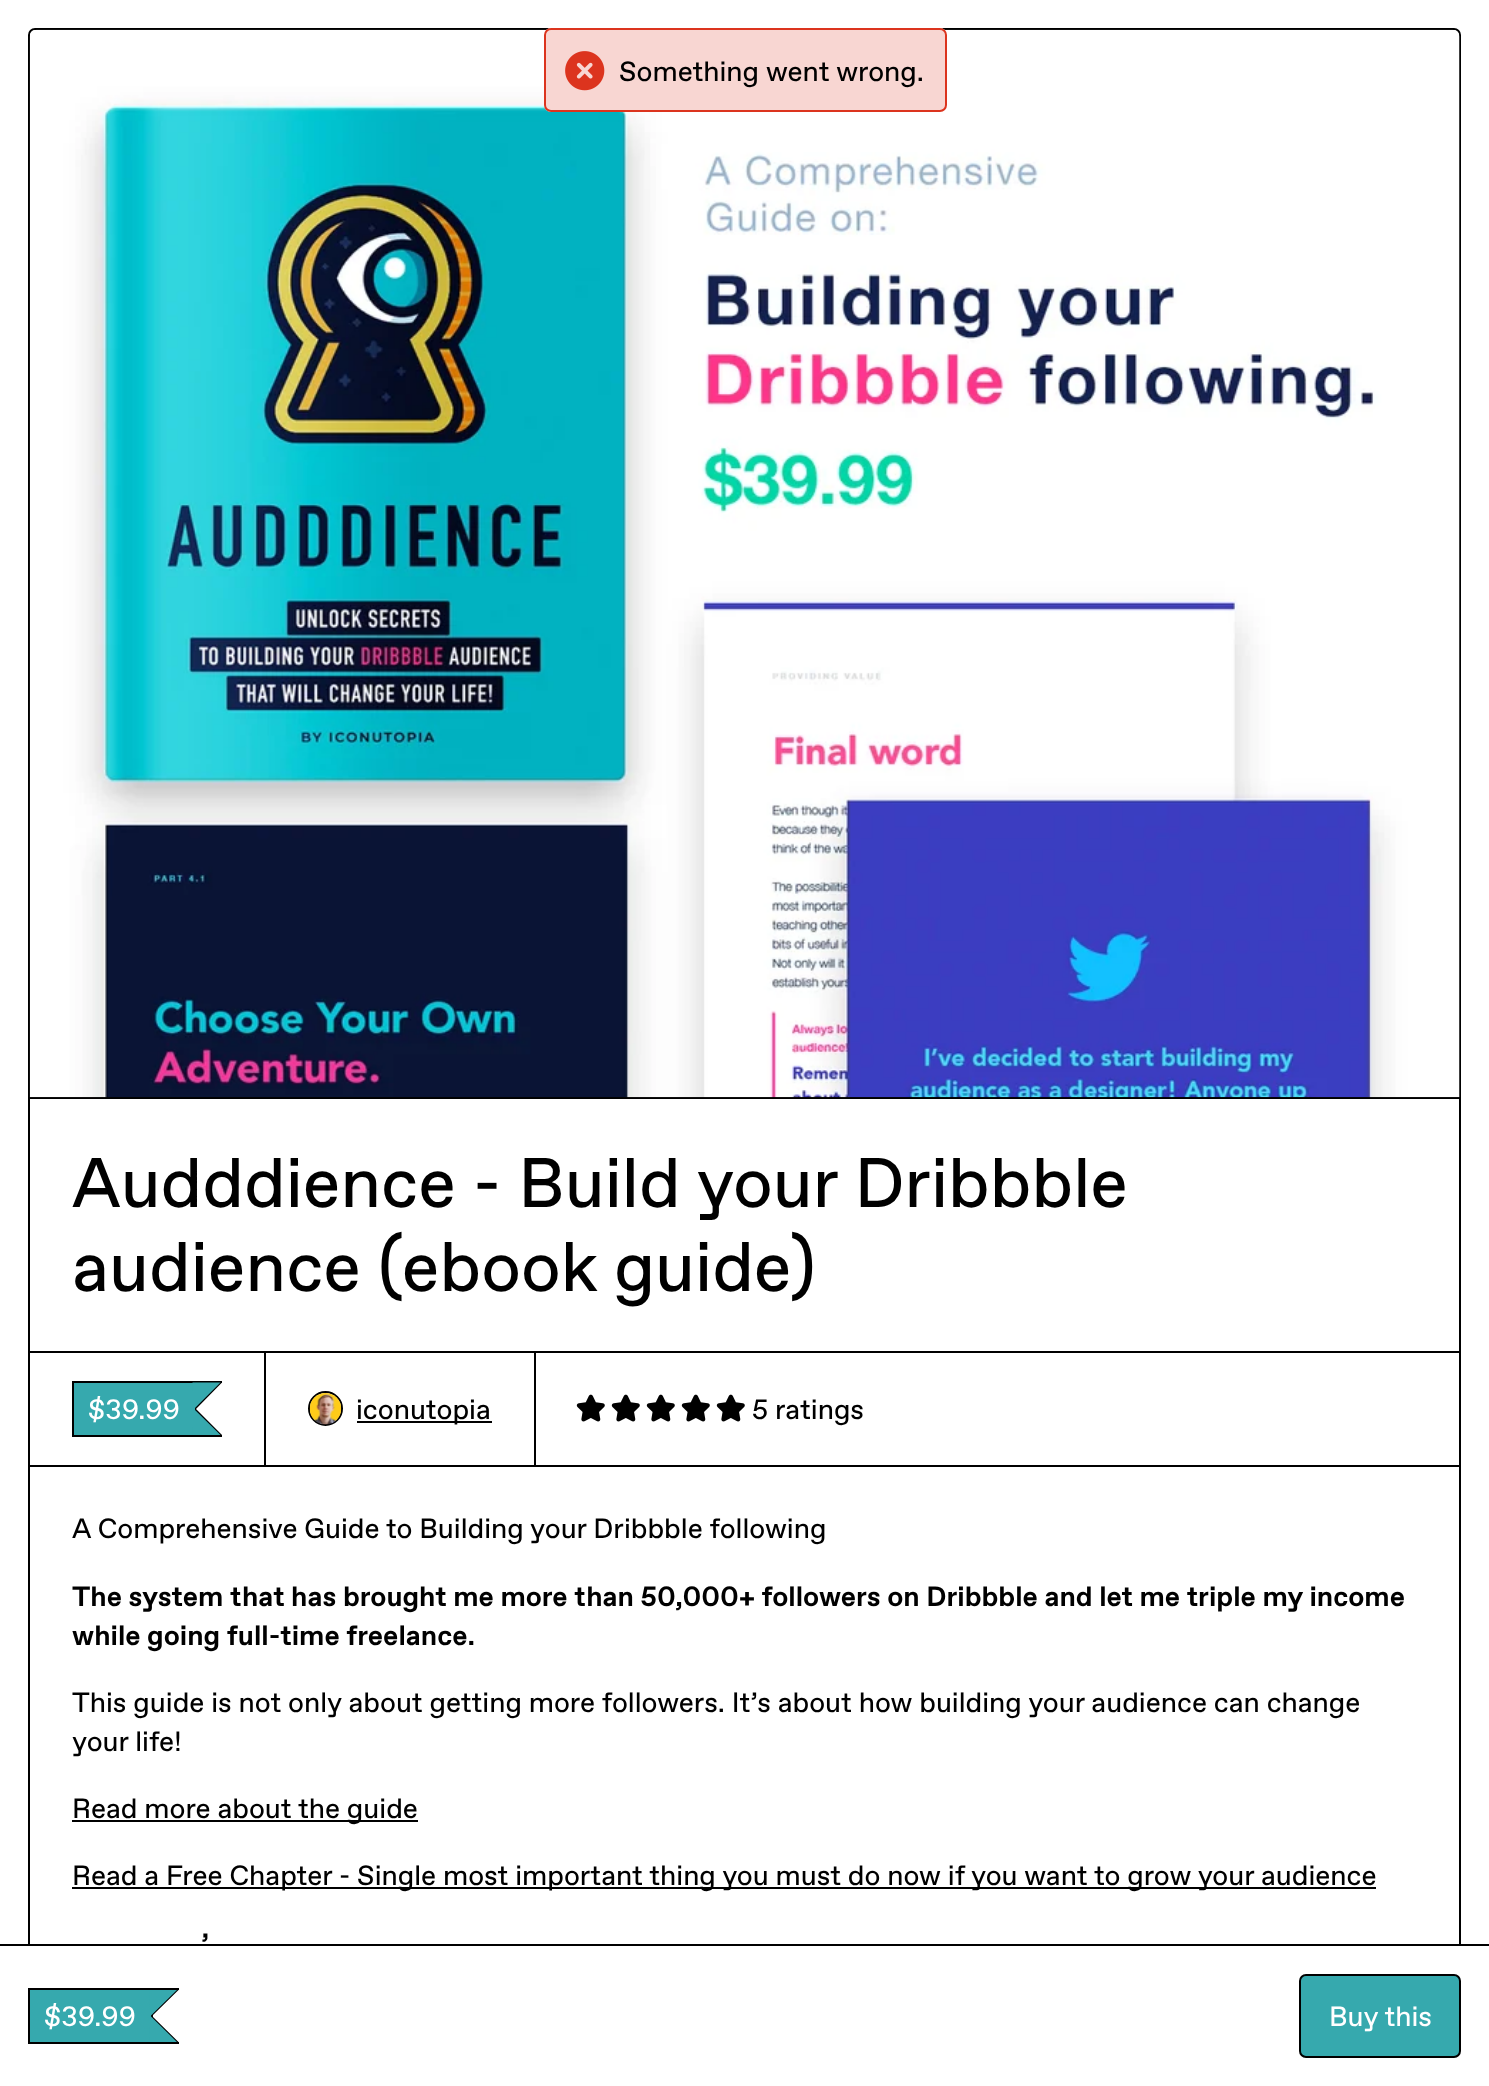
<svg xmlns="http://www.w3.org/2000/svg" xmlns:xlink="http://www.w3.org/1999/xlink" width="1489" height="2086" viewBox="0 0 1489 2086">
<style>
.cls-1{font:28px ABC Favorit;fill:#000000}
.cls-2{font:70px ABC Favorit;fill:#000000}
.cls-3{font:28px ABC Favorit;fill:#ffffff}
.cls-4{font:bold 28px ABC Favorit;fill:#000000}
</style>
<rect width="100%" height="100%" fill="#ffffff"/>
<rect fill="none" stroke="#000000" stroke-width="2" x="29" y="29" width="1431" height="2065" rx="6"/>
<rect fill="#000000" x="30" y="1097" width="1430" height="2"/>
<image xlink:href="image1.png" x="29" y="29" width="1431" height="1069"/>
<rect fill="#ffffff" x="544" y="28" width="403" height="84" rx="7"/>
<rect fill="#dc341e" fill-opacity="0.2" stroke="#dc341e" stroke-width="2" x="545" y="29" width="401" height="82" rx="6"/>
<image xlink:href="image0.png" x="565" y="51" width="40" height="40"/>
<rect fill="#000000" x="536" y="1351" width="924" height="2"/>
<rect fill="none" stroke="#000000" stroke-width="2" x="29" y="1352" width="236" height="114"/>
<rect fill="#000000" x="72" y="1381" width="150" height="2"/>
<rect fill="#000000" x="72" y="1435" width="150" height="2"/>
<rect fill="#000000" x="72" y="1381" width="2" height="56"/>
<rect fill="#36a9ae" x="74" y="1383" width="119" height="52"/>
<path fill="#000000" d="M194 1382.5H222L196 1409ZM222 1435H194L196 1409Z"/>
<rect fill="#000000" x="195" y="1407" width="1" height="4"/>
<path fill="#36a9ae" d="M192.5 1382.5H220.5L194 1409ZM220.5 1435H192.5L194 1409Z"/>
<rect fill="#36a9ae" x="193" y="1392" width="2" height="34"/>
<rect fill="none" stroke="#000000" stroke-width="2" x="265" y="1352" width="270" height="114"/>
<circle fill="none" stroke="#000000" stroke-width="2" cx="325.5" cy="1408.5" r="16.5"/>
<image xlink:href="image2.png" x="309" y="1393" width="33" height="32"/>
<rect fill="#000000" x="357" y="1421" width="135" height="2"/>
<image xlink:href="image3.png" x="576" y="1394" width="29" height="28"/>
<image xlink:href="image3.png" x="611" y="1394" width="29" height="28"/>
<image xlink:href="image3.png" x="646" y="1394" width="29" height="28"/>
<image xlink:href="image3.png" x="681" y="1394" width="29" height="28"/>
<image xlink:href="image3.png" x="716" y="1394" width="29" height="28"/>
<rect fill="#000000" x="536" y="1465" width="924" height="2"/>
<rect fill="#000000" x="72" y="1820" width="346" height="2"/>
<rect fill="#000000" x="72" y="1887" width="1304" height="2"/>
<rect fill="#000000" x="0" y="1944" width="1489" height="2"/>
<rect fill="#ffffff" x="28" y="1946" width="1433" height="140"/>
<rect fill="#000000" x="28" y="1988" width="151" height="2"/>
<rect fill="#000000" x="28" y="2042" width="151" height="2"/>
<rect fill="#000000" x="28" y="1988" width="2" height="56"/>
<rect fill="#36a9ae" x="30" y="1990" width="121" height="52"/>
<path fill="#000000" d="M150.5 1990H178.5L152 2016ZM178.5 2042H150.5L152 2016Z"/>
<rect fill="#000000" x="151" y="2013" width="2" height="6"/>
<path fill="#36a9ae" d="M149 1990H177L150.5 2016ZM177 2042H149L150.5 2016Z"/>
<rect fill="#36a9ae" stroke="#000000" stroke-width="2" x="1300" y="1975" width="160" height="82" rx="6"/>
<text class="cls-1" x="619" y="81">Something went wrong.</text>
<text class="cls-2"><tspan x="72" y="1207">Audddience - Build your Dribbble</tspan><tspan x="72" y="1291">audience (ebook guide)</tspan></text>
<text class="cls-3" x="88" y="1419">$39.99</text>
<text class="cls-1" x="356" y="1419">iconutopia</text>
<text class="cls-1" x="752" y="1419">5 ratings</text>
<text class="cls-1" x="72" y="1538">A Comprehensive Guide to Building your Dribbble following</text>
<text class="cls-4"><tspan x="72" y="1606">The system that has brought me more than 50,000+ followers on Dribbble and let me triple my income</tspan><tspan x="72" y="1645">while going full-time freelance.</tspan></text>
<text class="cls-1"><tspan x="72" y="1712">This guide is not only about getting more followers. It’s about how building your audience can change</tspan><tspan x="72" y="1751">your life!</tspan></text>
<text class="cls-1" x="72" y="1818">Read more about the guide</text>
<text class="cls-1" x="72" y="1885">Read a Free Chapter - Single most important thing you must do now if you want to grow your audience</text>
<text class="cls-4" x="201" y="1953">’</text>
<text class="cls-3" x="44" y="2026">$39.99</text>
<text class="cls-3" x="1329" y="2026">Buy this</text>
</svg>
